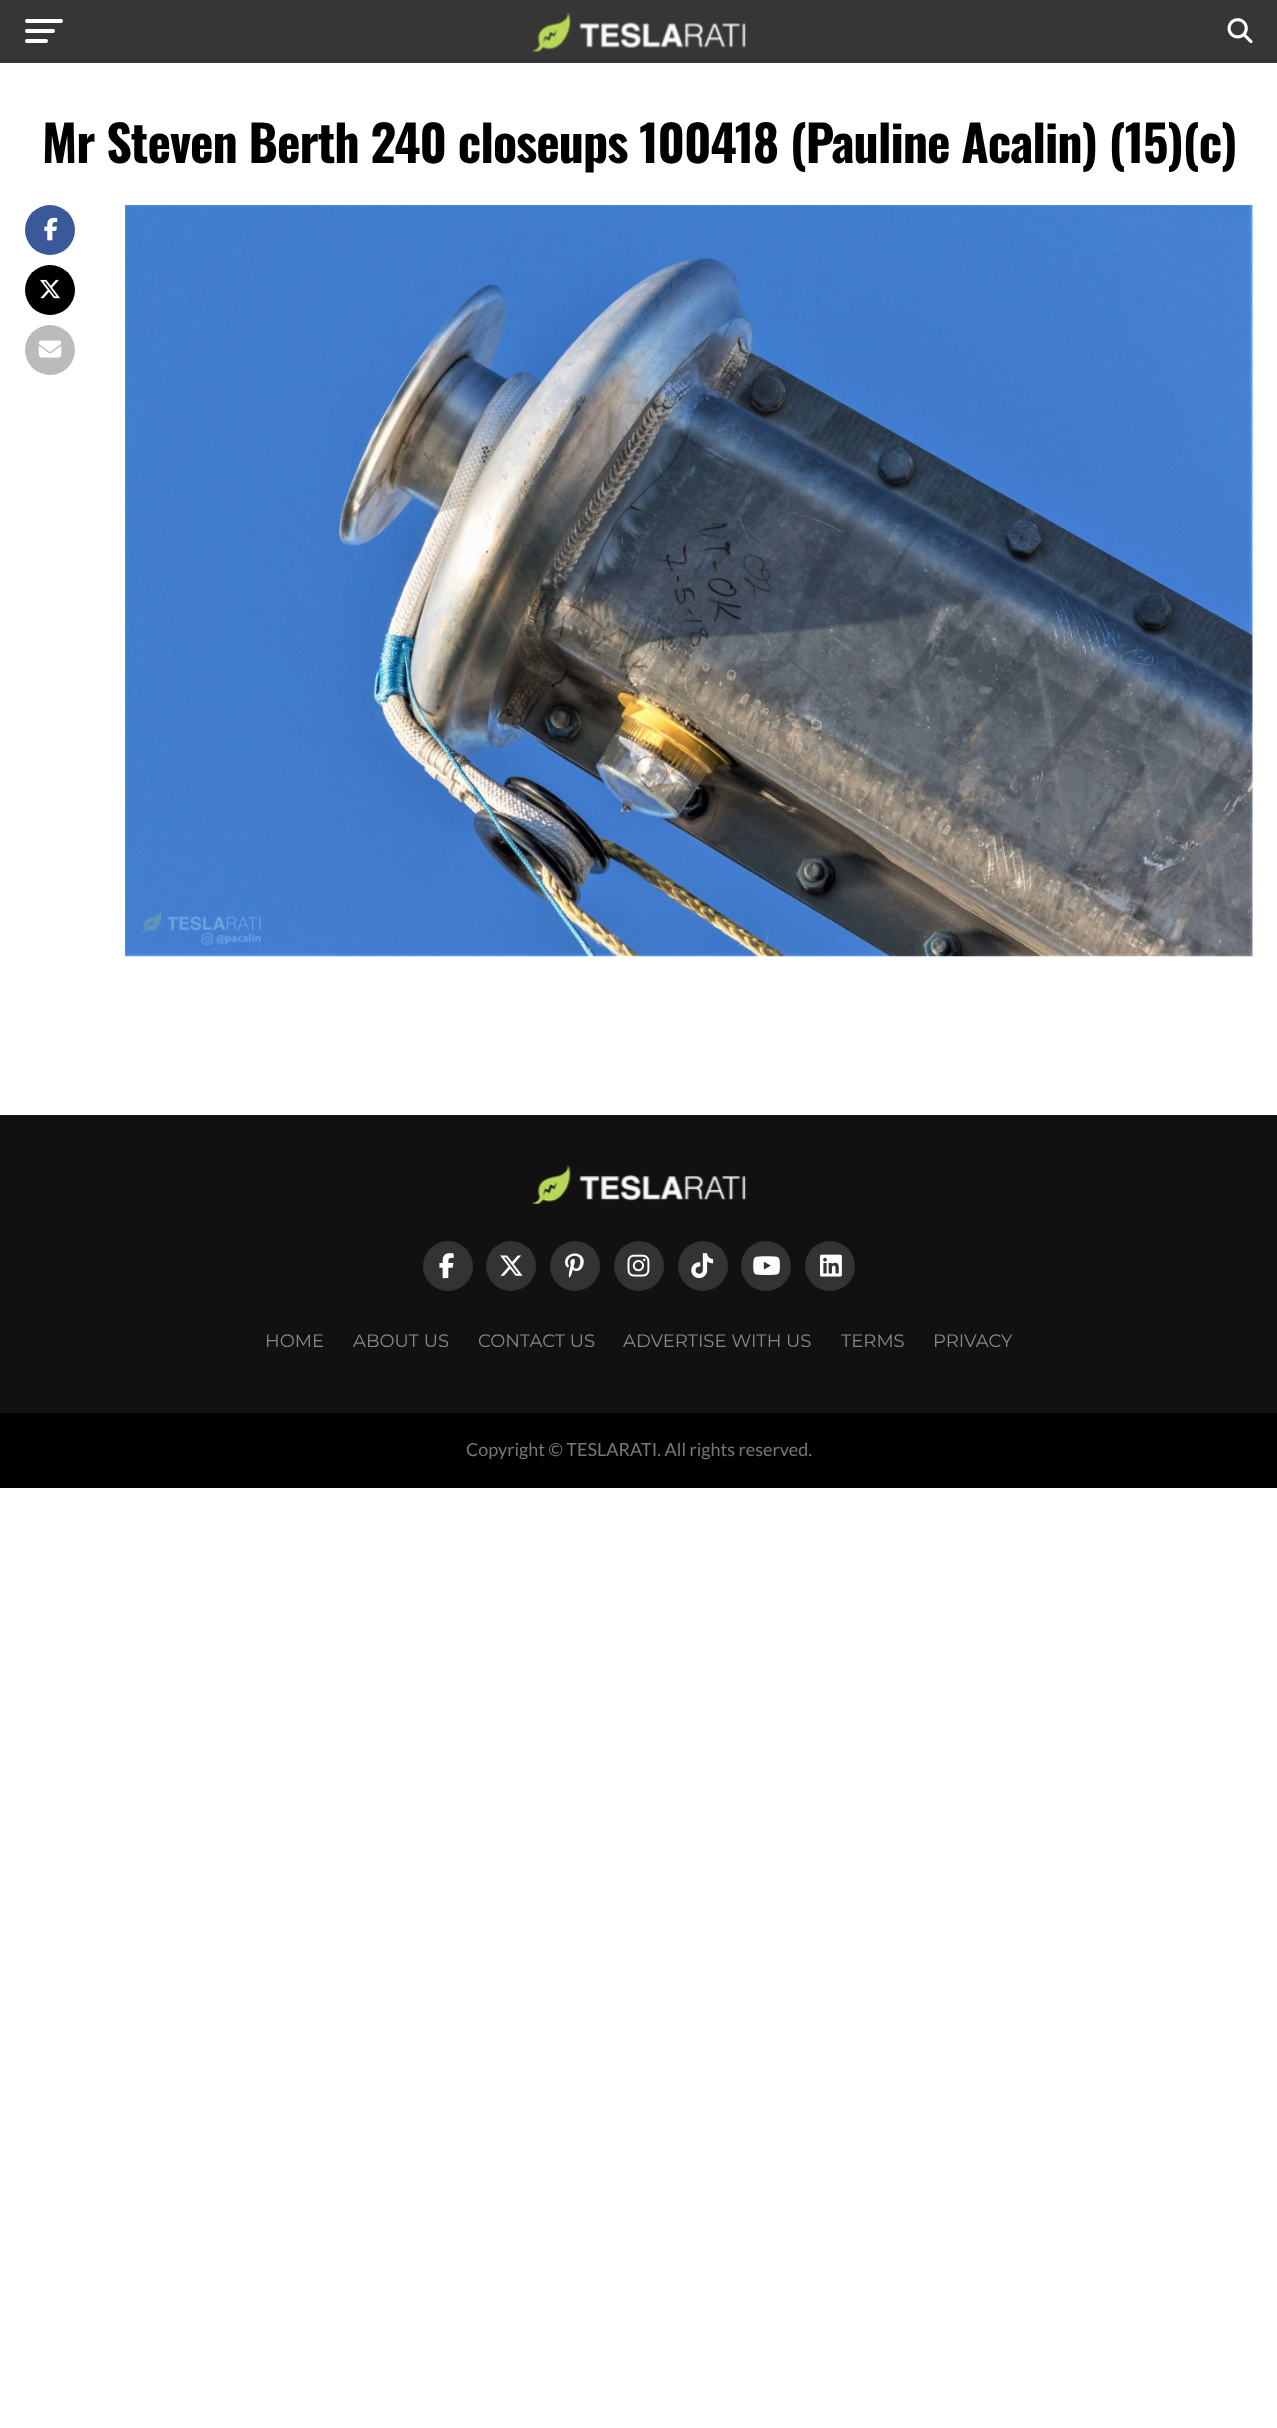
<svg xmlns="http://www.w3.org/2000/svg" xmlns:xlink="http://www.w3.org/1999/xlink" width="1277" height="2428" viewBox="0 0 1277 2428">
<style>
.cls-1{font:bold 50px Oswald;letter-spacing:-1px;fill:#000000}
.cls-2{font:18px Montserrat;fill:#888888}
.cls-3{font:18px Lato;fill:#777777}
</style>
<rect width="100%" height="100%" fill="#ffffff"/>
<rect fill="#363636" x="0" y="0" width="1277" height="63"/>
<rect fill="#ffffff" x="25" y="19" width="38" height="4" rx="2"/>
<rect fill="#ffffff" x="25" y="29" width="30" height="4" rx="2"/>
<rect fill="#ffffff" x="25" y="39" width="23" height="4" rx="2"/>
<image xlink:href="image0.png" x="532" y="12" width="214" height="40"/>
<image xlink:href="image1.png" x="1227" y="18" width="26" height="26"/>
<circle fill="#3b5998" cx="50" cy="230" r="25"/>
<image xlink:href="image2.png" x="44" y="217" width="14" height="24"/>
<circle fill="#000000" cx="50" cy="290" r="25"/>
<image xlink:href="image3.png" x="40" y="279" width="20" height="20"/>
<circle fill="#bbbbbb" cx="50" cy="350" r="25"/>
<image xlink:href="image4.png" x="38" y="340" width="24" height="18"/>
<image xlink:href="image5.png" x="125" y="205" width="1128" height="752"/>
<rect fill="#111111" x="0" y="1115" width="1277" height="298"/>
<image xlink:href="image6.png" x="532" y="1165" width="214" height="39"/>
<circle fill="#333333" cx="448" cy="1266" r="25"/>
<image xlink:href="image7.png" x="439" y="1253" width="15" height="26"/>
<circle fill="#333333" cx="511" cy="1266" r="25"/>
<image xlink:href="image8.png" x="500" y="1255" width="23" height="21"/>
<circle fill="#333333" cx="575" cy="1266" r="25"/>
<image xlink:href="image9.png" x="565" y="1253" width="19" height="25"/>
<circle fill="#333333" cx="639" cy="1266" r="25"/>
<image xlink:href="image10.png" x="627" y="1254" width="23" height="23"/>
<circle fill="#333333" cx="703" cy="1266" r="25"/>
<image xlink:href="image11.png" x="691" y="1253" width="23" height="26"/>
<circle fill="#333333" cx="766" cy="1266" r="25"/>
<image xlink:href="image12.png" x="753" y="1256" width="27" height="19"/>
<circle fill="#333333" cx="830" cy="1266" r="25"/>
<image xlink:href="image13.png" x="820" y="1254" width="22" height="23"/>
<rect fill="#000000" x="0" y="1413" width="1277" height="75"/>
<text class="cls-1" x="42" y="163">Mr Steven Berth 240 closeups 100418 (Pauline Acalin) (15)(c)</text>
<text class="cls-2" x="265" y="1347">HOME</text>
<text class="cls-2" x="353" y="1347">ABOUT US</text>
<text class="cls-2" x="478" y="1347">CONTACT US</text>
<text class="cls-2" x="623" y="1347">ADVERTISE WITH US</text>
<text class="cls-2" x="841" y="1347">TERMS</text>
<text class="cls-2" x="933" y="1347">PRIVACY</text>
<text class="cls-3" x="466" y="1456">Copyright © TESLARATI. All rights reserved.</text>
</svg>
